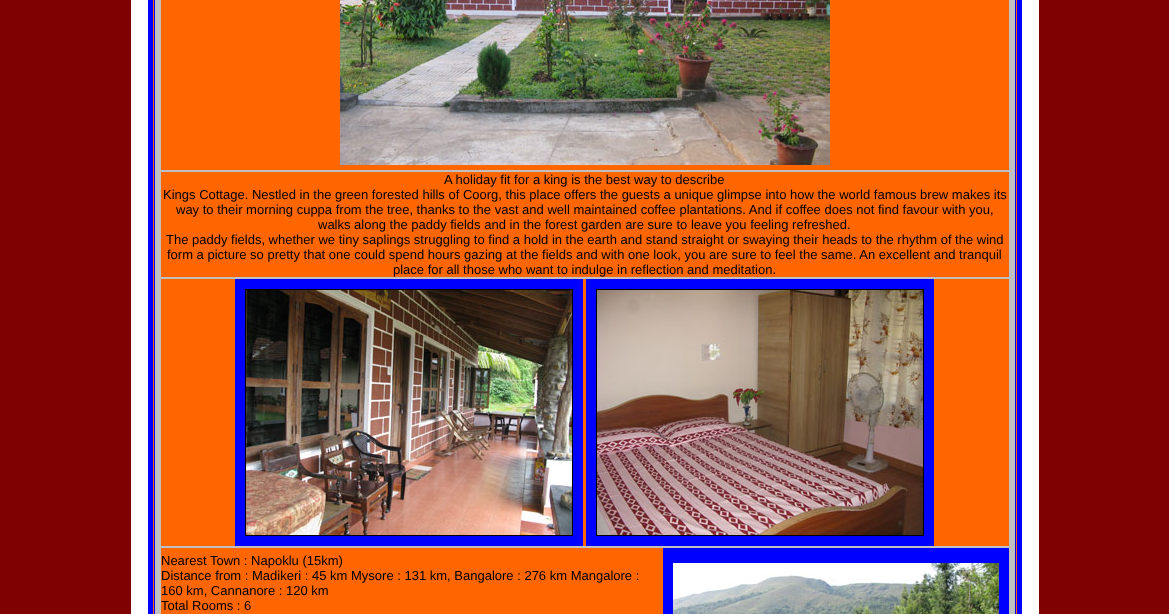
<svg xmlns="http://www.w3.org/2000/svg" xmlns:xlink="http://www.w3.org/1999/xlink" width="1169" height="614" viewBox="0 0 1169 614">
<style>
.cls-1{font:13px Liberation Sans;fill:#000000}
</style>
<rect width="100%" height="100%" fill="#800102"/>
<rect fill="#ffffff" x="131" y="0" width="908" height="614"/>
<rect fill="#ff6600" stroke="#0000ff" stroke-width="5" x="150.5" y="-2.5" width="869" height="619"/>
<rect fill="none" stroke="#0000ff" x="154.5" y="-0.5" width="861" height="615"/>
<rect fill="none" stroke="#c0c0c0" stroke-width="5" x="157.5" y="-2.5" width="855" height="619"/>
<rect fill="none" stroke="#c0c0c0" x="160.5" y="-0.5" width="849" height="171"/>
<image xlink:href="image0.png" x="340" y="0" width="490" height="165"/>
<rect fill="none" stroke="#c0c0c0" x="160.5" y="171.5" width="849" height="106"/>
<rect fill="none" stroke="#c0c0c0" x="160.5" y="278.5" width="849" height="268"/>
<rect fill="#0000ff" x="235" y="279" width="348" height="267"/>
<rect fill="none" stroke="#000000" x="245.5" y="289.5" width="327" height="246"/>
<image xlink:href="image1.png" x="246" y="290" width="326" height="245"/>
<rect fill="#0000ff" x="586" y="279" width="348" height="267"/>
<rect fill="none" stroke="#000000" x="596.5" y="289.5" width="327" height="246"/>
<image xlink:href="image2.png" x="597" y="290" width="326" height="245"/>
<rect fill="none" stroke="#c0c0c0" x="160.5" y="547.5" width="849" height="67"/>
<rect fill="#0000ff" x="663" y="548" width="346" height="66"/>
<image xlink:href="image3.png" x="673" y="563" width="326" height="51"/>
<text class="cls-1" x="444" y="184">A holiday fit for a king is the best way to describe</text>
<text class="cls-1" x="163" y="199">Kings Cottage. Nestled in the green forested hills of Coorg, this place offers the guests a unique glimpse into how the world famous brew makes its</text>
<text class="cls-1" x="176" y="214">way to their morning cuppa from the tree, thanks to the vast and well maintained coffee plantations. And if coffee does not find favour with you,</text>
<text class="cls-1" x="318" y="229">walks along the paddy fields and in the forest garden are sure to leave you feeling refreshed.</text>
<text class="cls-1" x="166" y="244">The paddy fields, whether we tiny saplings struggling to find a hold in the earth and stand straight or swaying their heads to the rhythm of the wind</text>
<text class="cls-1" x="167" y="259">form a picture so pretty that one could spend hours gazing at the fields and with one look, you are sure to feel the same. An excellent and tranquil</text>
<text class="cls-1" x="393" y="274">place for all those who want to indulge in reflection and meditation.</text>
<text class="cls-1"><tspan x="161" y="565">Nearest Town : Napoklu (15km)</tspan><tspan x="161" y="580">Distance from : Madikeri : 45 km Mysore : 131 km, Bangalore : 276 km Mangalore :</tspan><tspan x="161" y="595">160 km, Cannanore : 120 km</tspan><tspan x="161" y="610">Total Rooms : 6</tspan></text>
</svg>
